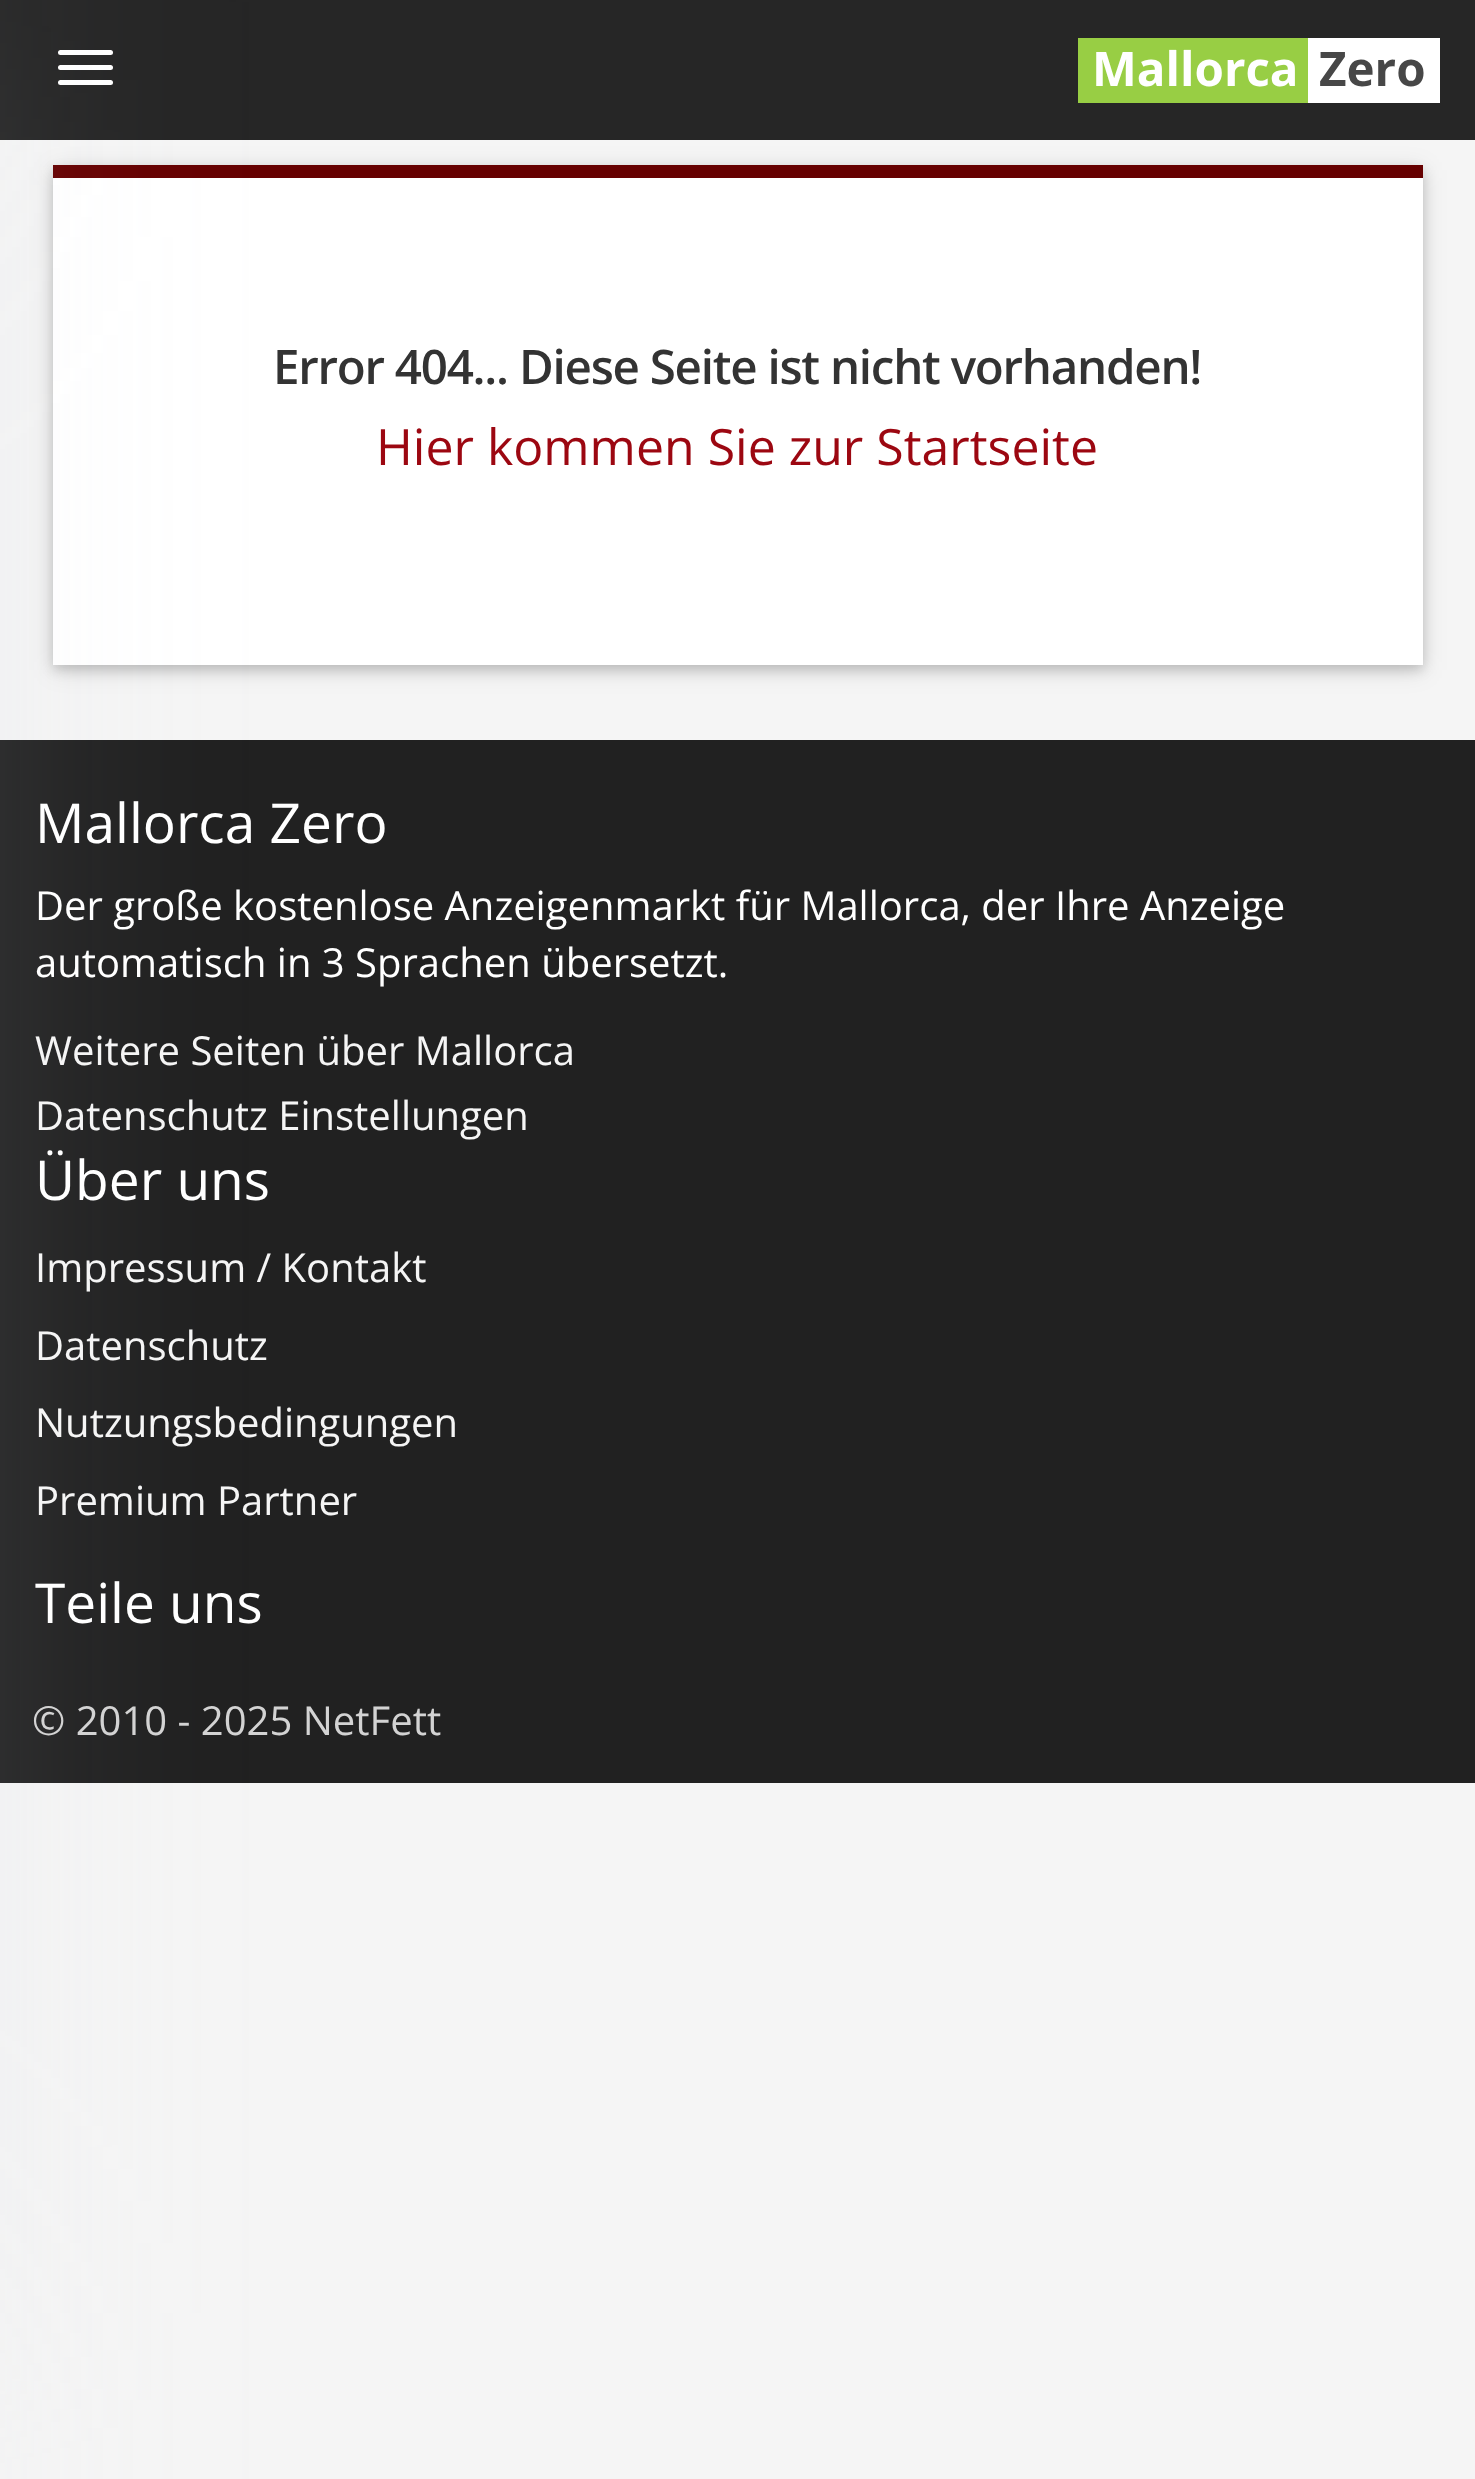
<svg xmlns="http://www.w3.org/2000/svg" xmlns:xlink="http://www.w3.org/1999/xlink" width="1475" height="2479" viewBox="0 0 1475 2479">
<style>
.cls-1{font:bold 47.5px Open Sans;fill:#ffffff}
.cls-2{font:bold 47.5px Open Sans;fill:#474747}
.cls-3{font:600 47.5px Open Sans;letter-spacing:-1.25px;fill:#333333}
.cls-4{font:50px Open Sans;fill:#9c0711}
.cls-5{font:55px Open Sans;fill:#ffffff}
.cls-6{font:40px Open Sans;fill:#ffffff}
.cls-7{font:40px Open Sans;fill:#f5f5f5}
.cls-8{font:40px Open Sans;fill:#d3d3d3}
</style>
<rect width="100%" height="100%" fill="#f5f5f5"/>
<rect fill="#262626" x="0" y="0" width="1475" height="140"/>
<rect fill="#ffffff" x="58" y="50" width="55" height="5" rx="2.5"/>
<rect fill="#ffffff" x="58" y="65" width="55" height="5" rx="2.5"/>
<rect fill="#ffffff" x="58" y="80" width="55" height="5" rx="2.5"/>
<rect fill="#000000" fill-opacity="0.12" filter="blur(12.5px)" x="53" y="170" width="1370" height="500"/>
<rect fill="#000000" fill-opacity="0.16" filter="blur(6px)" x="53" y="170" width="1370" height="500"/>
<rect fill="#ffffff" x="53" y="178" width="1370" height="487"/>
<rect fill="#660000" x="53" y="165" width="1370" height="13"/>
<rect fill="#212121" x="0" y="740" width="1475" height="1043"/>
<rect fill="#d1d6e1" filter="blur(250px)" x="-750" y="0" width="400" height="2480"/>
<rect fill="#98ce44" x="1078" y="38" width="230" height="65"/>
<rect fill="#ffffff" x="1308" y="38" width="132" height="65"/>
<text class="cls-1" x="1092" y="86">Mallorca</text>
<text class="cls-2" x="1319" y="86">Zero</text>
<text class="cls-3" x="273" y="384">Error 404... Diese Seite ist nicht vorhanden!</text>
<text class="cls-4" x="376" y="465">Hier kommen Sie zur Startseite</text>
<text class="cls-5" x="35" y="843">Mallorca Zero</text>
<text class="cls-6"><tspan x="35" y="920">Der große kostenlose Anzeigenmarkt für Mallorca, der Ihre Anzeige</tspan><tspan x="35" y="977">automatisch in 3 Sprachen übersetzt.</tspan></text>
<text class="cls-7"><tspan x="35" y="1065">Weitere Seiten über Mallorca</tspan><tspan x="35" y="1130">Datenschutz Einstellungen</tspan></text>
<text class="cls-5" x="35" y="1200">Über uns</text>
<text class="cls-7"><tspan x="35" y="1282">Impressum / Kontakt</tspan><tspan x="35" y="1360">Datenschutz</tspan><tspan x="35" y="1437">Nutzungsbedingungen</tspan><tspan x="35" y="1515">Premium Partner</tspan></text>
<text class="cls-5" x="35" y="1623">Teile uns</text>
<text class="cls-8" x="32" y="1735">© 2010 - 2025 NetFett</text>
</svg>
